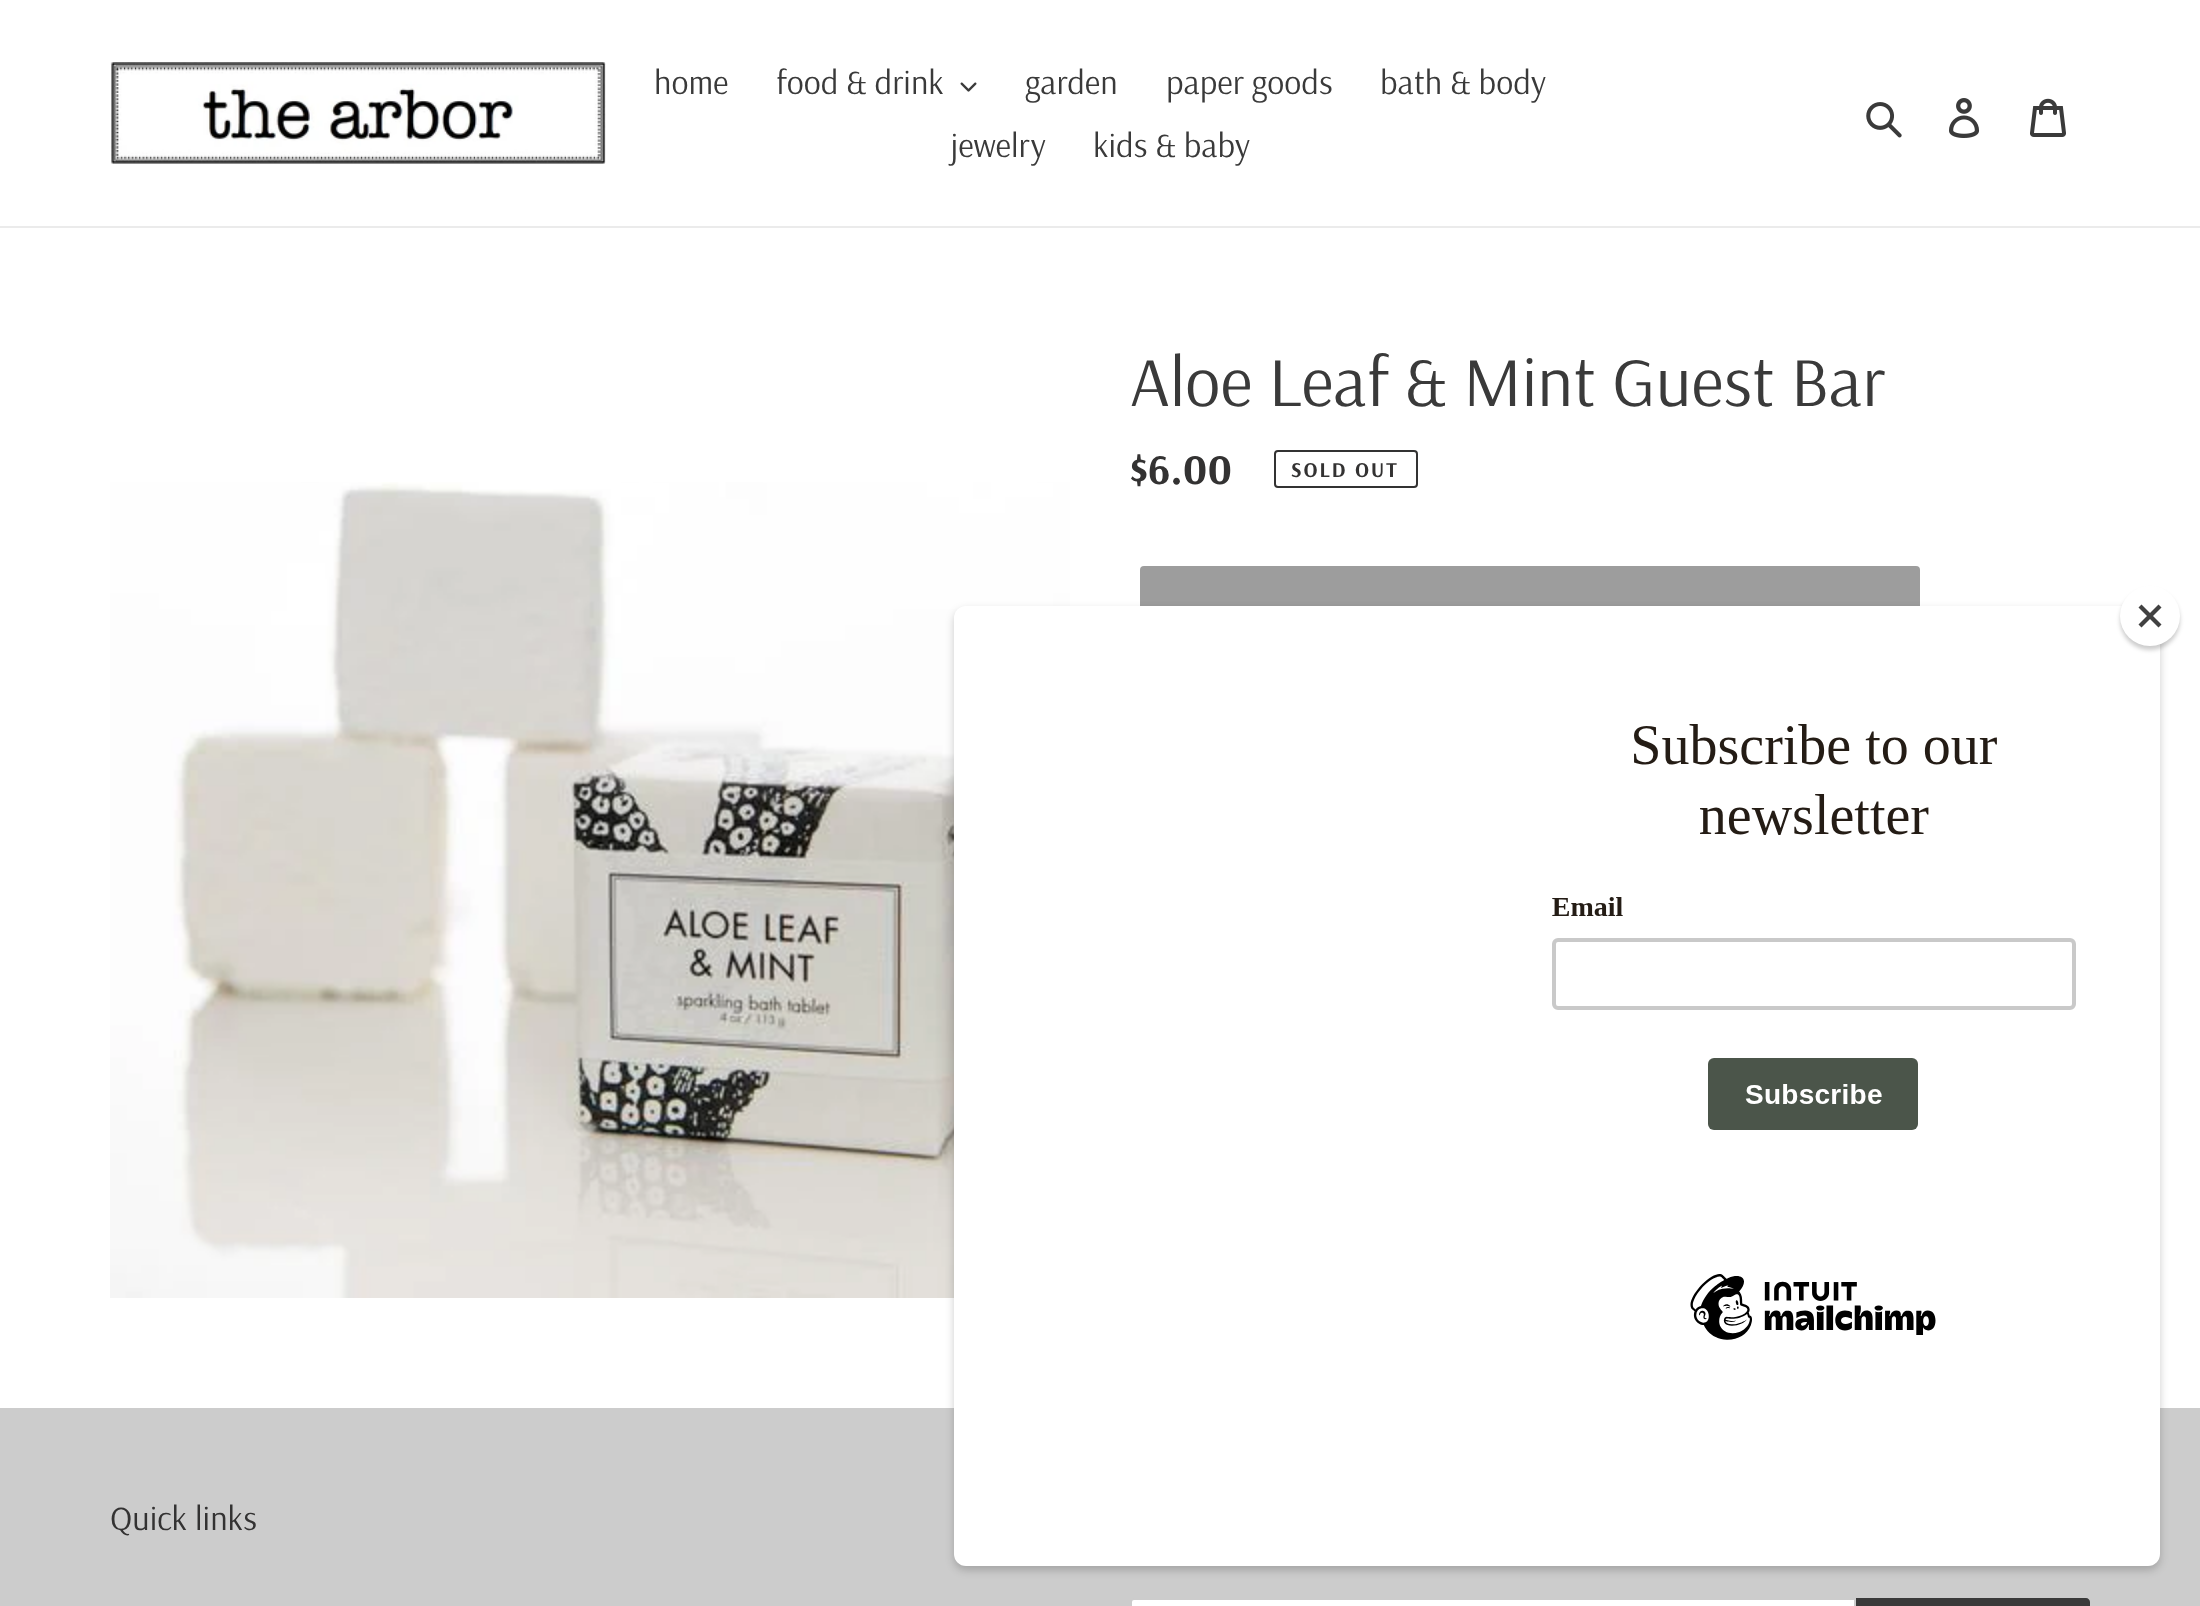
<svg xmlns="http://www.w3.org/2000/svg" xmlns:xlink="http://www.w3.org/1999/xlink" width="2200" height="1606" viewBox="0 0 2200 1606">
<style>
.cls-1{font:34px Arsenal;fill:#3a3a3a}
.cls-2{font:70px Arsenal;fill:#3a3a3a}
.cls-3{font:bold 42.5px Arsenal;fill:#333232}
.cls-4{font:bold 21.25px Arsenal;letter-spacing:2px;fill:#333232}
.cls-5{font:34px Arsenal;fill:#333232}
</style>
<rect width="100%" height="100%" fill="#ffffff"/>
<rect fill="#ebebeb" x="0" y="226" width="2200" height="2"/>
<image xlink:href="image0.png" x="110" y="62" width="496" height="102"/>
<image xlink:href="image1.png" x="960" y="82" width="17" height="10"/>
<image xlink:href="image2.png" x="1866" y="102" width="36" height="36"/>
<image xlink:href="image3.png" x="1949" y="98" width="31" height="40"/>
<image xlink:href="image4.png" x="2030" y="98" width="36" height="39"/>
<rect fill="none" stroke="#333232" stroke-width="2" x="1275" y="451" width="142" height="36" rx="3"/>
<rect fill="#9d9d9d" x="1140" y="566" width="780" height="88" rx="4"/>
<image xlink:href="image5.png" x="110" y="482" width="960" height="816"/>
<rect fill="#cccccc" x="0" y="1408" width="2200" height="198"/>
<path fill="#ffffff" stroke="#cccccc" stroke-width="2" d="M1134 1599H1855V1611H1134C1132.5 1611 1131 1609.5 1131 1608V1602C1131 1600.5 1132.5 1599 1134 1599Z"/>
<path fill="#3a3a3a" d="M1856 1598H2086C2088 1598 2090 1600 2090 1602V1606C2090 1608 2088 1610 2086 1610H1856Z"/>
<rect fill="#000000" fill-opacity="0.2" filter="blur(4px)" x="954" y="610" width="1206" height="960" rx="12"/>
<rect fill="#ffffff" x="954" y="606" width="1206" height="960" rx="12"/>
<rect fill="#000000" fill-opacity="0.2" filter="blur(2px)" x="2120" y="590" width="60" height="60" rx="30"/>
<circle fill="#ffffff" cx="2150" cy="616" r="30"/>
<path fill="#414141" d="M2158.5 604.5L2161.5 607.5L2141.5 627.5L2138.5 624.5Z"/>
<path fill="#414141" d="M2138.5 607.5L2141.5 604.5L2161.5 624.5L2158.5 627.5Z"/>
<image xlink:href="image6.png" x="1552" y="724" width="524" height="616"/>
<text class="cls-1" x="654" y="94">home</text>
<text class="cls-1" x="776" y="94">food &amp; drink</text>
<text class="cls-1" x="1025" y="94">garden</text>
<text class="cls-1" x="1166" y="94">paper goods</text>
<text class="cls-1" x="1380" y="94">bath &amp; body</text>
<text class="cls-1" x="950" y="157">jewelry</text>
<text class="cls-1" x="1093" y="157">kids &amp; baby</text>
<text class="cls-2" x="1130" y="406">Aloe Leaf &amp; Mint Guest Bar</text>
<text class="cls-3" x="1130" y="484">$6.00</text>
<text class="cls-4" x="1291" y="477">SOLD OUT</text>
<text class="cls-5" x="110" y="1530">Quick links</text>
</svg>
